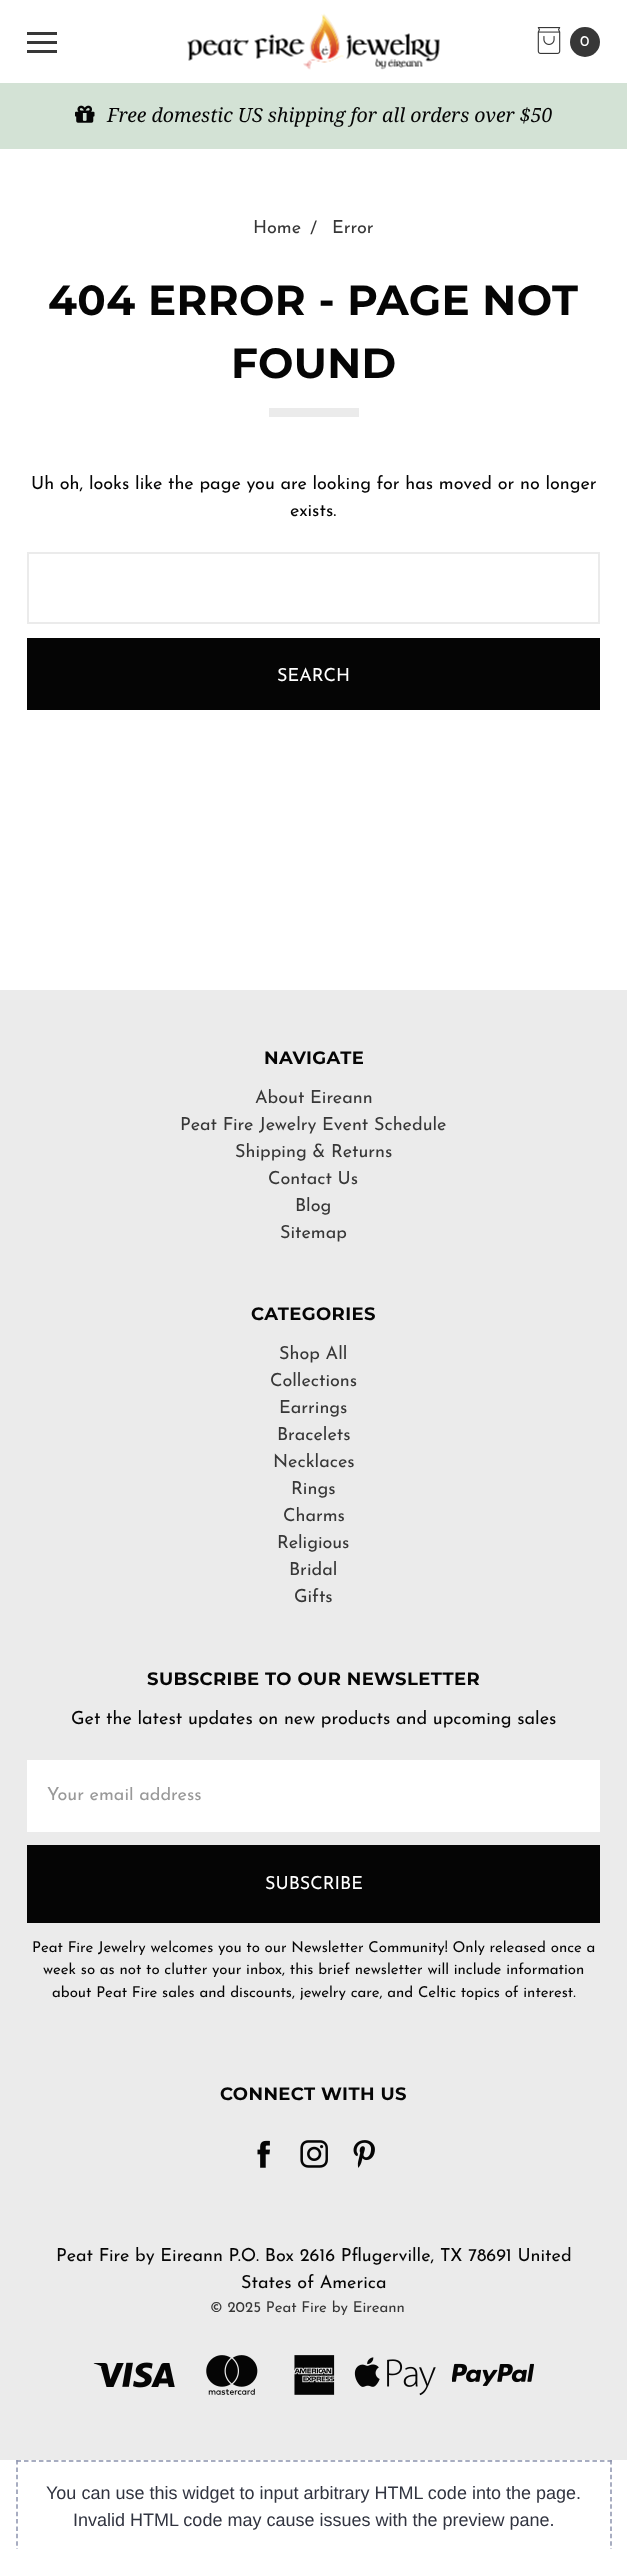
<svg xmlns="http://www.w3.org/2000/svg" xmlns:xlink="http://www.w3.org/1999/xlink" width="627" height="2549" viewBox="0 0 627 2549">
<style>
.cls-1{font:100 15px Josefin Sans;fill:#ffffff}
.cls-2{font:italic 19.5px Noto Serif;fill:#050505}
.cls-3{font:100 18px Josefin Sans;fill:#373737}
.cls-4{font:bold 42px Montserrat;letter-spacing:0.4px;fill:#050505}
.cls-5{font:100 18px Josefin Sans;fill:#050505}
.cls-6{font:100 18px Josefin Sans;fill:#ffffff}
.cls-7{font:bold 18px Montserrat;letter-spacing:0.4px;fill:#050505}
.cls-8{font:100 18px Josefin Sans;fill:#999999}
.cls-9{font:100 15px Josefin Sans;fill:#050505}
.cls-10{font:100 15px Josefin Sans;fill:#373737}
.cls-11{font:18px Liberation Sans;fill:#313440}
</style>
<defs>
<clipPath id="clip1"><rect x="47" y="1787" width="534" height="18"/></clipPath>
</defs>
<rect width="100%" height="100%" fill="#ffffff"/>
<rect fill="#373737" x="27" y="41" width="30" height="3"/>
<rect fill="#373737" x="27" y="32" width="30" height="3"/>
<rect fill="#373737" x="27" y="50" width="30" height="3"/>
<image xlink:href="image0.png" x="187" y="13" width="253" height="57"/>
<image xlink:href="image1.png" x="537" y="27" width="24" height="27"/>
<circle fill="#373737" cx="585" cy="42" r="15"/>
<rect fill="#d3e2d5" x="0" y="83" width="627" height="66"/>
<image xlink:href="image2.png" x="75" y="105" width="20" height="18"/>
<rect fill="#ebebeb" x="269" y="408" width="90" height="9"/>
<rect fill="none" stroke="#ebebeb" stroke-width="2" x="28" y="553" width="571" height="70"/>
<rect fill="#050505" x="27" y="638" width="573" height="72"/>
<rect fill="#ebebeb" x="0" y="990" width="627" height="1470"/>
<rect fill="#ffffff" x="27" y="1760" width="573" height="72"/>
<rect fill="#050505" x="27" y="1845" width="573" height="78"/>
<image xlink:href="image3.png" x="257" y="2140" width="13" height="28"/>
<image xlink:href="image4.png" x="300" y="2140" width="28" height="28"/>
<image xlink:href="image5.png" x="353" y="2140" width="22" height="28"/>
<image xlink:href="image6.png" x="93" y="2362" width="82" height="26"/>
<image xlink:href="image7.png" x="206" y="2355" width="52" height="40"/>
<image xlink:href="image8.png" x="294" y="2355" width="41" height="40"/>
<image xlink:href="image9.png" x="354" y="2357" width="82" height="39"/>
<image xlink:href="image10.png" x="452" y="2363" width="82" height="23"/>
<path fill="none" stroke="#8c93ad" stroke-width="1.5" stroke-dasharray="4.5 2.98" d="M16.5 2461H612"/>
<path fill="none" stroke="#8c93ad" stroke-width="1.5" stroke-dasharray="4.5 2.88" d="M611 2460V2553"/>
<path fill="none" stroke="#8c93ad" stroke-width="1.5" stroke-dasharray="4.5 2.88" d="M17 2460V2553"/>
<text class="cls-1" x="580" y="46">0</text>
<text class="cls-2" x="107" y="122">Free domestic US shipping for all orders over $50</text>
<text class="cls-3" x="253" y="233">Home</text>
<text class="cls-3" x="310" y="234">/</text>
<text class="cls-3" x="332" y="233">Error</text>
<text class="cls-4" x="48" y="315">404 ERROR - PAGE NOT</text>
<text class="cls-4" x="231" y="378">FOUND</text>
<text class="cls-5" x="31" y="489">Uh oh, looks like the page you are looking for has moved or no longer</text>
<text class="cls-5" x="290" y="516">exists.</text>
<text class="cls-6" x="277" y="681">SEARCH</text>
<text class="cls-7" x="264" y="1064">NAVIGATE</text>
<text class="cls-3" x="255" y="1103">About Eireann</text>
<text class="cls-3" x="180" y="1130">Peat Fire Jewelry Event Schedule</text>
<text class="cls-3" x="235" y="1157">Shipping &amp; Returns</text>
<text class="cls-3" x="268" y="1184">Contact Us</text>
<text class="cls-3" x="295" y="1211">Blog</text>
<text class="cls-3" x="280" y="1238">Sitemap</text>
<text class="cls-7" x="251" y="1320">CATEGORIES</text>
<text class="cls-3" x="279" y="1359">Shop All</text>
<text class="cls-3" x="270" y="1386">Collections</text>
<text class="cls-3" x="279" y="1413">Earrings</text>
<text class="cls-3" x="277" y="1440">Bracelets</text>
<text class="cls-3" x="273" y="1467">Necklaces</text>
<text class="cls-3" x="291" y="1494">Rings</text>
<text class="cls-3" x="283" y="1521">Charms</text>
<text class="cls-3" x="277" y="1548">Religious</text>
<text class="cls-3" x="289" y="1575">Bridal</text>
<text class="cls-3" x="294" y="1602">Gifts</text>
<text class="cls-7" x="147" y="1685">SUBSCRIBE TO OUR NEWSLETTER</text>
<text class="cls-5" x="71" y="1724">Get the latest updates on new products and upcoming sales</text>
<g clip-path="url(#clip1)">
<text class="cls-8" x="47" y="1800">Your email address</text>
</g>
<text class="cls-6" x="265" y="1889">SUBSCRIBE</text>
<text class="cls-9" x="32" y="1952">Peat Fire Jewelry welcomes you to our Newsletter Community! Only released once a</text>
<text class="cls-9" x="43" y="1974">week so as not to clutter your inbox, this brief newsletter will include information</text>
<text class="cls-9" x="52" y="1997">about Peat Fire sales and discounts, jewelry care, and Celtic topics of interest.</text>
<text class="cls-7" x="220" y="2100">CONNECT WITH US</text>
<text class="cls-5" x="56" y="2261">Peat Fire by Eireann P.O. Box 2616 Pflugerville, TX 78691 United</text>
<text class="cls-5" x="241" y="2288">States of America</text>
<text class="cls-10" x="210" y="2312">© 2025 Peat Fire by Eireann</text>
<text class="cls-11" x="46" y="2499">You can use this widget to input arbitrary HTML code into the page.</text>
<text class="cls-11" x="73" y="2526">Invalid HTML code may cause issues with the preview pane.</text>
</svg>
